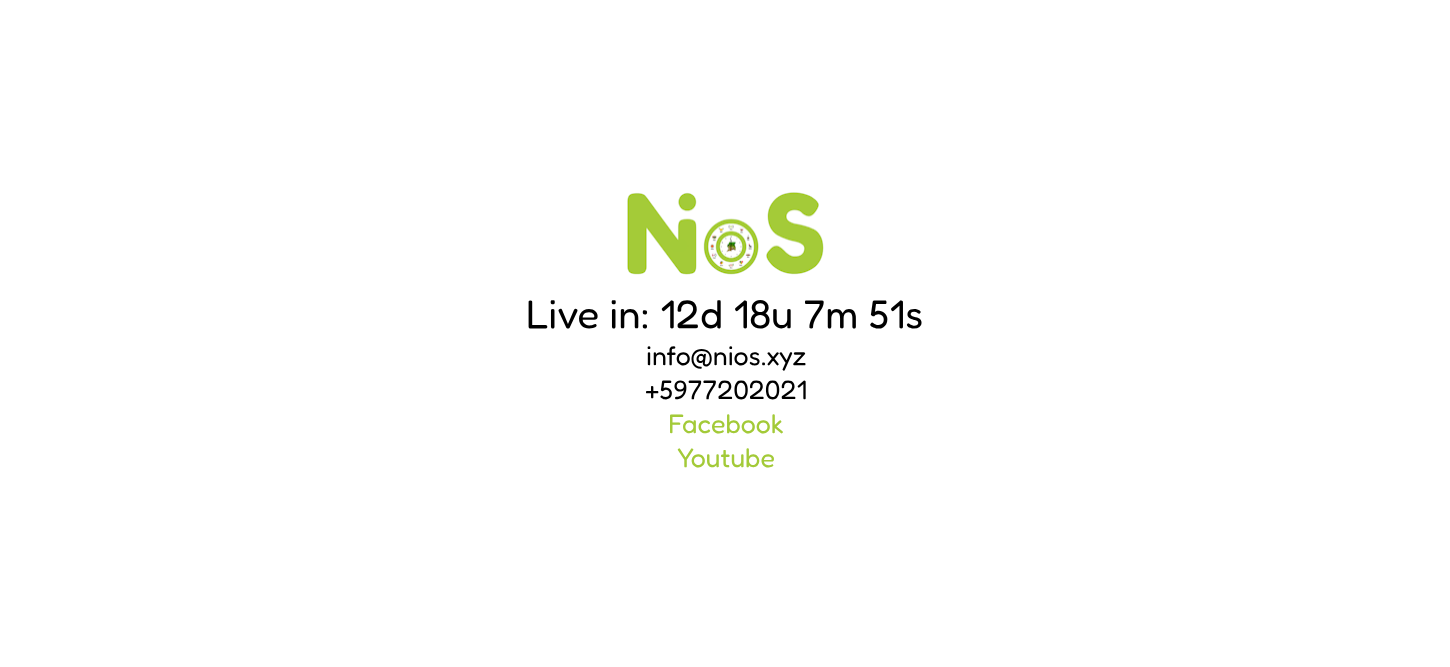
<svg xmlns="http://www.w3.org/2000/svg" xmlns:xlink="http://www.w3.org/1999/xlink" width="1450" height="667" viewBox="0 0 1450 667">
<style>
.cls-1{font:40px Fredoka;fill:#000000}
.cls-2{font:26.75px Fredoka;fill:#000000}
.cls-3{font:26.75px Fredoka;fill:#a3ca38}
</style>
<rect width="100%" height="100%" fill="#ffffff"/>
<image xlink:href="image0.png" x="627" y="192" width="197" height="83"/>
<text class="cls-1" x="526" y="328">Live in: 12d 18u 7m 51s</text>
<text class="cls-2" x="646" y="365">info@nios.xyz</text>
<text class="cls-2" x="645" y="399">+5977202021</text>
<text class="cls-3" x="668" y="433">Facebook</text>
<text class="cls-3" x="677" y="467">Youtube</text>
</svg>
